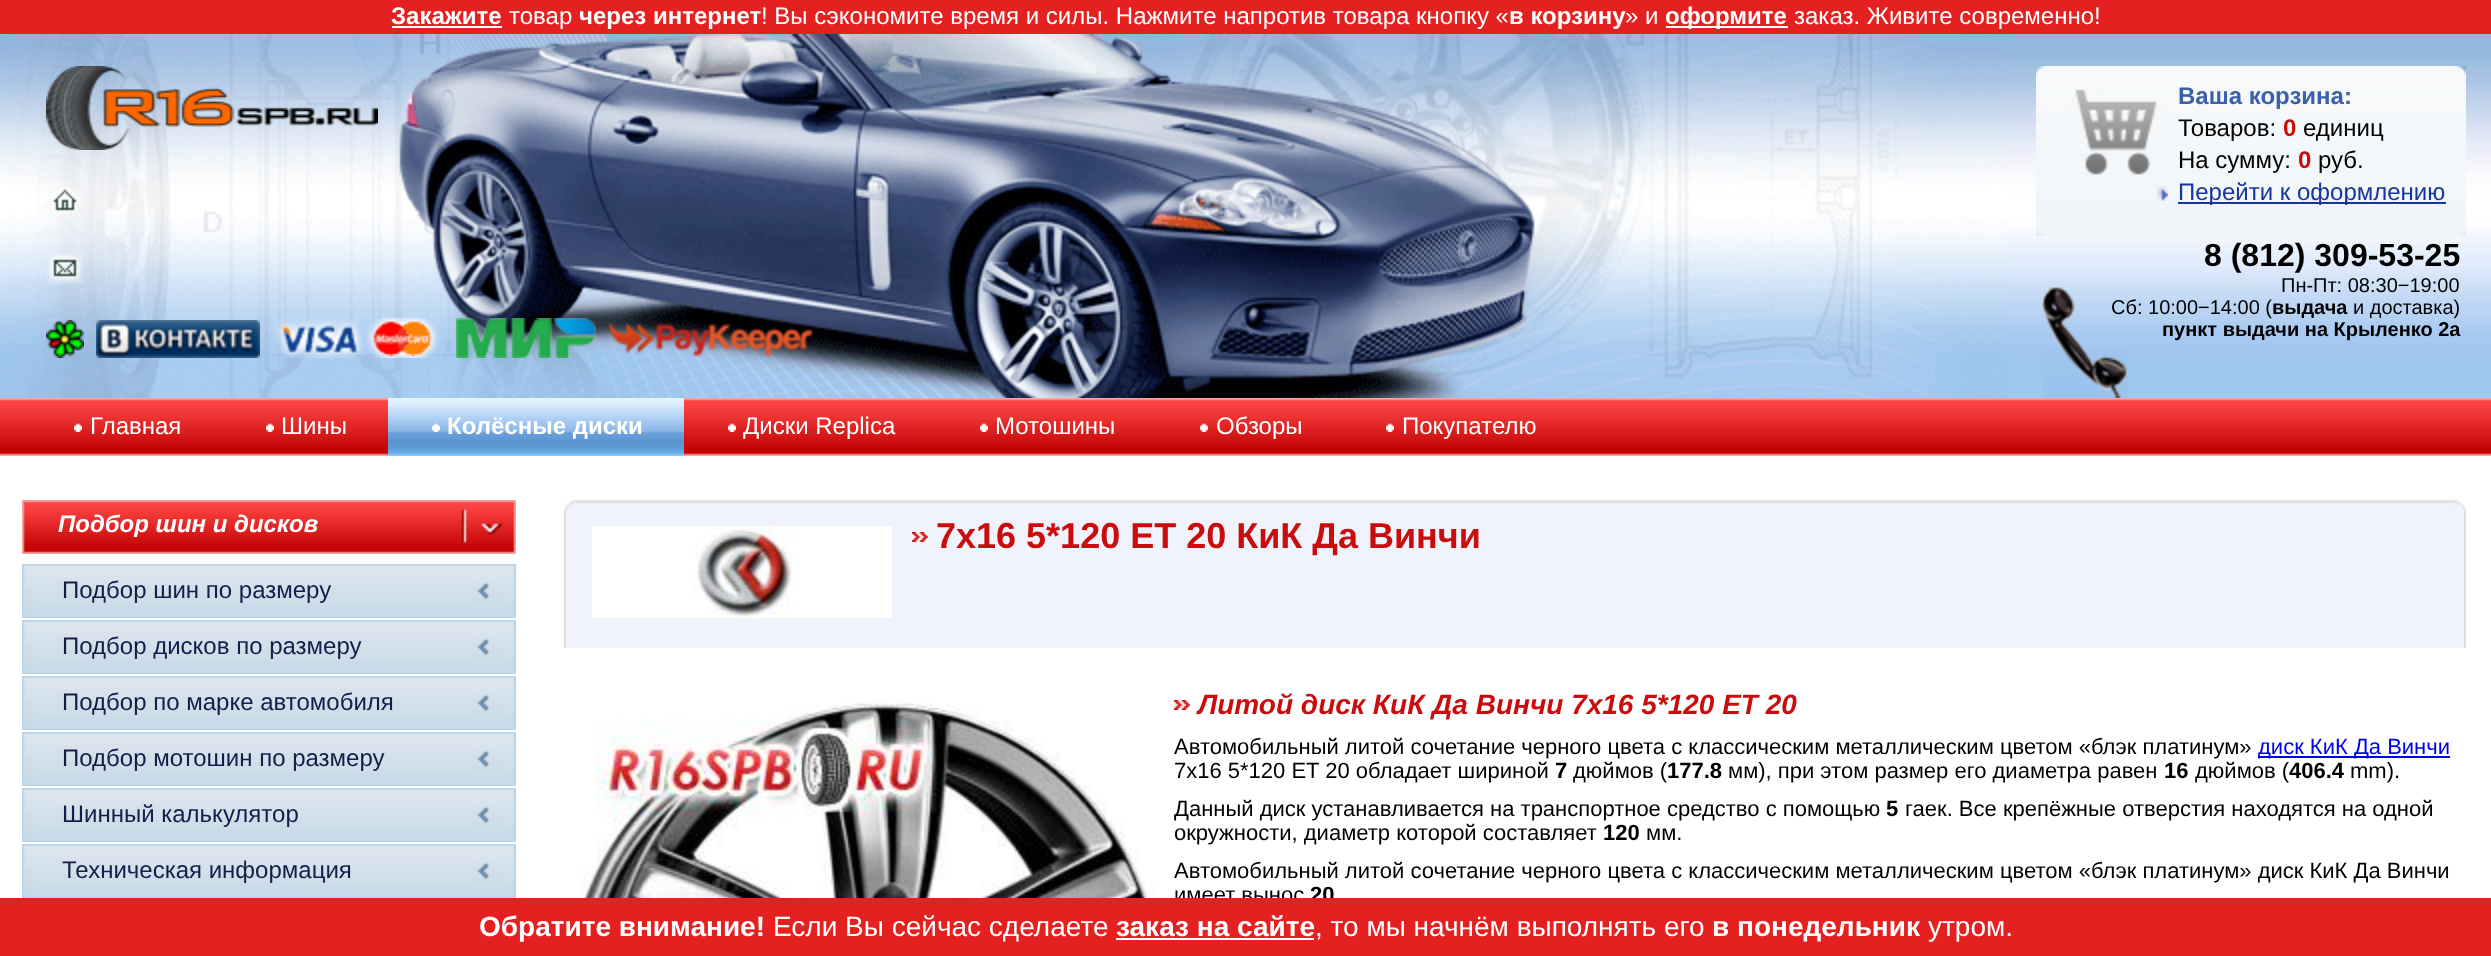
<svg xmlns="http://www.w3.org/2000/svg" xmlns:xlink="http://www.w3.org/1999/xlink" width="2491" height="956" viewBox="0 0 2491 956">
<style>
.cls-1{font:bold 24px Liberation Sans;fill:#ffffff}
.cls-2{font:24px Liberation Sans;fill:#ffffff}
.cls-3{font:bold 24px Liberation Sans;fill:#3a60a9}
.cls-4{font:24px Liberation Sans;fill:#000000}
.cls-5{font:bold 24px Liberation Sans;fill:#ca0c0c}
.cls-6{font:24px Liberation Sans;fill:#183599}
.cls-7{font:bold 32px Liberation Sans;fill:#000000}
.cls-8{font:20px Liberation Sans;fill:#000000}
.cls-9{font:bold 20px Liberation Sans;fill:#000000}
.cls-10{font:italic bold 24px Liberation Sans;fill:#ffffff}
.cls-11{font:24px Liberation Sans;fill:#181c4b}
.cls-12{font:bold 36px Liberation Sans;fill:#ca0c0c}
.cls-13{font:italic bold 28px Liberation Sans;fill:#ca0c0c}
.cls-14{font:22px Liberation Sans;fill:#000000}
.cls-15{font:22px Liberation Sans;fill:#0000ee}
.cls-16{font:bold 22px Liberation Sans;fill:#000000}
.cls-17{font:28px Liberation Sans;fill:#ffffff}
.cls-18{font:bold 28px Liberation Sans;fill:#ffffff}
</style>
<rect width="100%" height="100%" fill="#ffffff"/>
<rect fill="#e42020" x="0" y="0" width="2491" height="34"/>
<rect fill="#ffffff" x="392" y="26" width="110" height="2"/>
<rect fill="#ffffff" x="1666" y="26" width="122" height="2"/>
<image xlink:href="image0.png" x="2008" y="34" width="483" height="364"/>
<image xlink:href="image1.png" x="0" y="34" width="2008" height="364"/>
<image xlink:href="image2.png" x="46" y="66" width="332" height="84"/>
<image xlink:href="image3.png" x="52" y="187" width="27" height="28"/>
<image xlink:href="image4.png" x="46" y="253" width="38" height="31"/>
<image xlink:href="image5.png" x="46" y="320" width="38" height="38"/>
<image xlink:href="image6.png" x="96" y="320" width="164" height="38"/>
<image xlink:href="image7.png" x="274" y="318" width="165" height="40"/>
<image xlink:href="image8.png" x="456" y="318" width="140" height="40"/>
<image xlink:href="image9.png" x="608" y="321" width="205" height="36"/>
<image xlink:href="image10.png" x="2036" y="66" width="430" height="170"/>
<image xlink:href="image11.png" x="2156" y="185" width="12" height="16"/>
<rect fill="#183599" x="2178" y="202" width="268" height="2"/>
<image xlink:href="image12.png" x="2042" y="286" width="86" height="112"/>
<image xlink:href="image13.png" x="0" y="398" width="2491" height="58"/>
<image xlink:href="image14.png" x="74" y="423" width="8" height="9"/>
<image xlink:href="image14.png" x="266" y="423" width="8" height="9"/>
<image xlink:href="image15.png" x="388" y="398" width="296" height="58"/>
<image xlink:href="image16.png" x="432" y="423" width="8" height="9"/>
<image xlink:href="image14.png" x="728" y="423" width="8" height="9"/>
<image xlink:href="image14.png" x="980" y="423" width="8" height="9"/>
<image xlink:href="image14.png" x="1200" y="423" width="8" height="9"/>
<image xlink:href="image14.png" x="1386" y="423" width="8" height="9"/>
<image xlink:href="image17.png" x="22" y="500" width="494" height="54"/>
<image xlink:href="image18.png" x="22" y="564" width="494" height="54"/>
<image xlink:href="image18.png" x="22" y="620" width="494" height="54"/>
<image xlink:href="image18.png" x="22" y="676" width="494" height="54"/>
<image xlink:href="image18.png" x="22" y="732" width="494" height="54"/>
<image xlink:href="image18.png" x="22" y="788" width="494" height="54"/>
<image xlink:href="image18.png" x="22" y="844" width="494" height="54"/>
<rect fill="#f0f3fb" x="566" y="503" width="1898" height="145"/>
<rect fill="#e1e1e4" x="576" y="500" width="1878" height="3"/>
<image xlink:href="image19.png" x="2454" y="500" width="12" height="12"/>
<image xlink:href="image20.png" x="564" y="500" width="12" height="12"/>
<rect fill="#dcdcdc" x="2464" y="512" width="2" height="136"/>
<rect fill="#dcdcdc" x="564" y="512" width="2" height="136"/>
<image xlink:href="image21.png" x="592" y="526" width="300" height="92"/>
<image xlink:href="image22.png" x="912" y="532" width="16" height="10"/>
<image xlink:href="image23.png" x="564" y="703" width="600" height="195"/>
<image xlink:href="image22.png" x="1174" y="700" width="16" height="10"/>
<rect fill="#0000ee" x="2258" y="756" width="192" height="2"/>
<text class="cls-1" x="391" y="24">Закажите</text>
<text class="cls-2" x="509" y="24">товар</text>
<text class="cls-1" x="579" y="24">через интернет</text>
<text class="cls-2" x="761" y="24">! Вы сэкономите время и силы. Нажмите напротив товара кнопку «</text>
<text class="cls-1" x="1509" y="24">в корзину</text>
<text class="cls-2" x="1625" y="24">» и</text>
<text class="cls-1" x="1665" y="24">оформите</text>
<text class="cls-2" x="1794" y="24">заказ. Живите современно!</text>
<text class="cls-3" x="2178" y="104">Ваша корзина:</text>
<text class="cls-4" x="2178" y="136">Товаров:</text>
<text class="cls-5" x="2283" y="136">0</text>
<text class="cls-4" x="2303" y="136">единиц</text>
<text class="cls-4" x="2178" y="168">На сумму:</text>
<text class="cls-5" x="2298" y="168">0</text>
<text class="cls-4" x="2318" y="168">руб.</text>
<text class="cls-6" x="2178" y="200">Перейти к оформлению</text>
<text class="cls-7" x="2204" y="266">8 (812) 309-53-25</text>
<text class="cls-8" x="2281" y="292">Пн-Пт: 08:30−19:00</text>
<text class="cls-8" x="2111" y="314">Сб: 10:00−14:00 (</text>
<text class="cls-9" x="2272" y="314">выдача</text>
<text class="cls-8" x="2353" y="314">и доставка)</text>
<text class="cls-9" x="2162" y="336">пункт выдачи на Крыленко 2а</text>
<text class="cls-2" x="90" y="434">Главная</text>
<text class="cls-2" x="281" y="434">Шины</text>
<text class="cls-1" x="447" y="434">Колёсные диски</text>
<text class="cls-2" x="743" y="434">Диски Replica</text>
<text class="cls-2" x="995" y="434">Мотошины</text>
<text class="cls-2" x="1216" y="434">Обзоры</text>
<text class="cls-2" x="1402" y="434">Покупателю</text>
<text class="cls-10" x="58" y="532">Подбор шин и дисков</text>
<text class="cls-11" x="62" y="598">Подбор шин по размеру</text>
<text class="cls-11" x="62" y="654">Подбор дисков по размеру</text>
<text class="cls-11" x="62" y="710">Подбор по марке автомобиля</text>
<text class="cls-11" x="62" y="766">Подбор мотошин по размеру</text>
<text class="cls-11" x="62" y="822">Шинный калькулятор</text>
<text class="cls-11" x="62" y="878">Техническая информация</text>
<text class="cls-12" x="936" y="548">7x16 5*120 ET 20 КиК Да Винчи</text>
<text class="cls-13" x="1198" y="714">Литой диск КиК Да Винчи 7x16 5*120 ET 20</text>
<text class="cls-14" x="1174" y="754">Автомобильный литой сочетание черного цвета с классическим металлическим цветом «блэк платинум»</text>
<text class="cls-15" x="2258" y="754">диск КиК Да Винчи</text>
<text class="cls-14" x="1174" y="778">7x16 5*120 ET 20 обладает шириной</text>
<text class="cls-16" x="1555" y="778">7</text>
<text class="cls-14" x="1573" y="778">дюймов (</text>
<text class="cls-16" x="1667" y="778">177.8</text>
<text class="cls-14" x="1728" y="778">мм), при этом размер его диаметра равен</text>
<text class="cls-16" x="2164" y="778">16</text>
<text class="cls-14" x="2195" y="778">дюймов (</text>
<text class="cls-16" x="2289" y="778">406.4</text>
<text class="cls-14" x="2350" y="778">mm).</text>
<text class="cls-14" x="1174" y="816">Данный диск устанавливается на транспортное средство с помощью</text>
<text class="cls-16" x="1886" y="816">5</text>
<text class="cls-14" x="1905" y="816">гаек. Все крепёжные отверстия находятся на одной</text>
<text class="cls-14" x="1174" y="840">окружности, диаметр которой составляет</text>
<text class="cls-16" x="1603" y="840">120</text>
<text class="cls-14" x="1646" y="840">мм.</text>
<text class="cls-14"><tspan x="1174" y="878">Автомобильный литой сочетание черного цвета с классическим металлическим цветом «блэк платинум» диск КиК Да Винчи</tspan><tspan x="1174" y="902">имеет вынос</tspan></text>
<text class="cls-16" x="1310" y="902">20</text>
<rect fill="#e42020" x="0" y="898" width="2491" height="58"/>
<text class="cls-17" x="1928" y="936">утром.</text>
<text class="cls-18" x="1712" y="936">в понедельник</text>
<text class="cls-17" x="1315" y="936">, то мы начнём выполнять его</text>
<text class="cls-18" x="1116" y="936">заказ на сайте</text>
<rect fill="#ffffff" x="1116" y="938" width="198" height="2"/>
<text class="cls-17" x="773" y="936">Если Вы сейчас сделаете</text>
<text class="cls-18" x="479" y="936">Обратите внимание!</text>
</svg>
